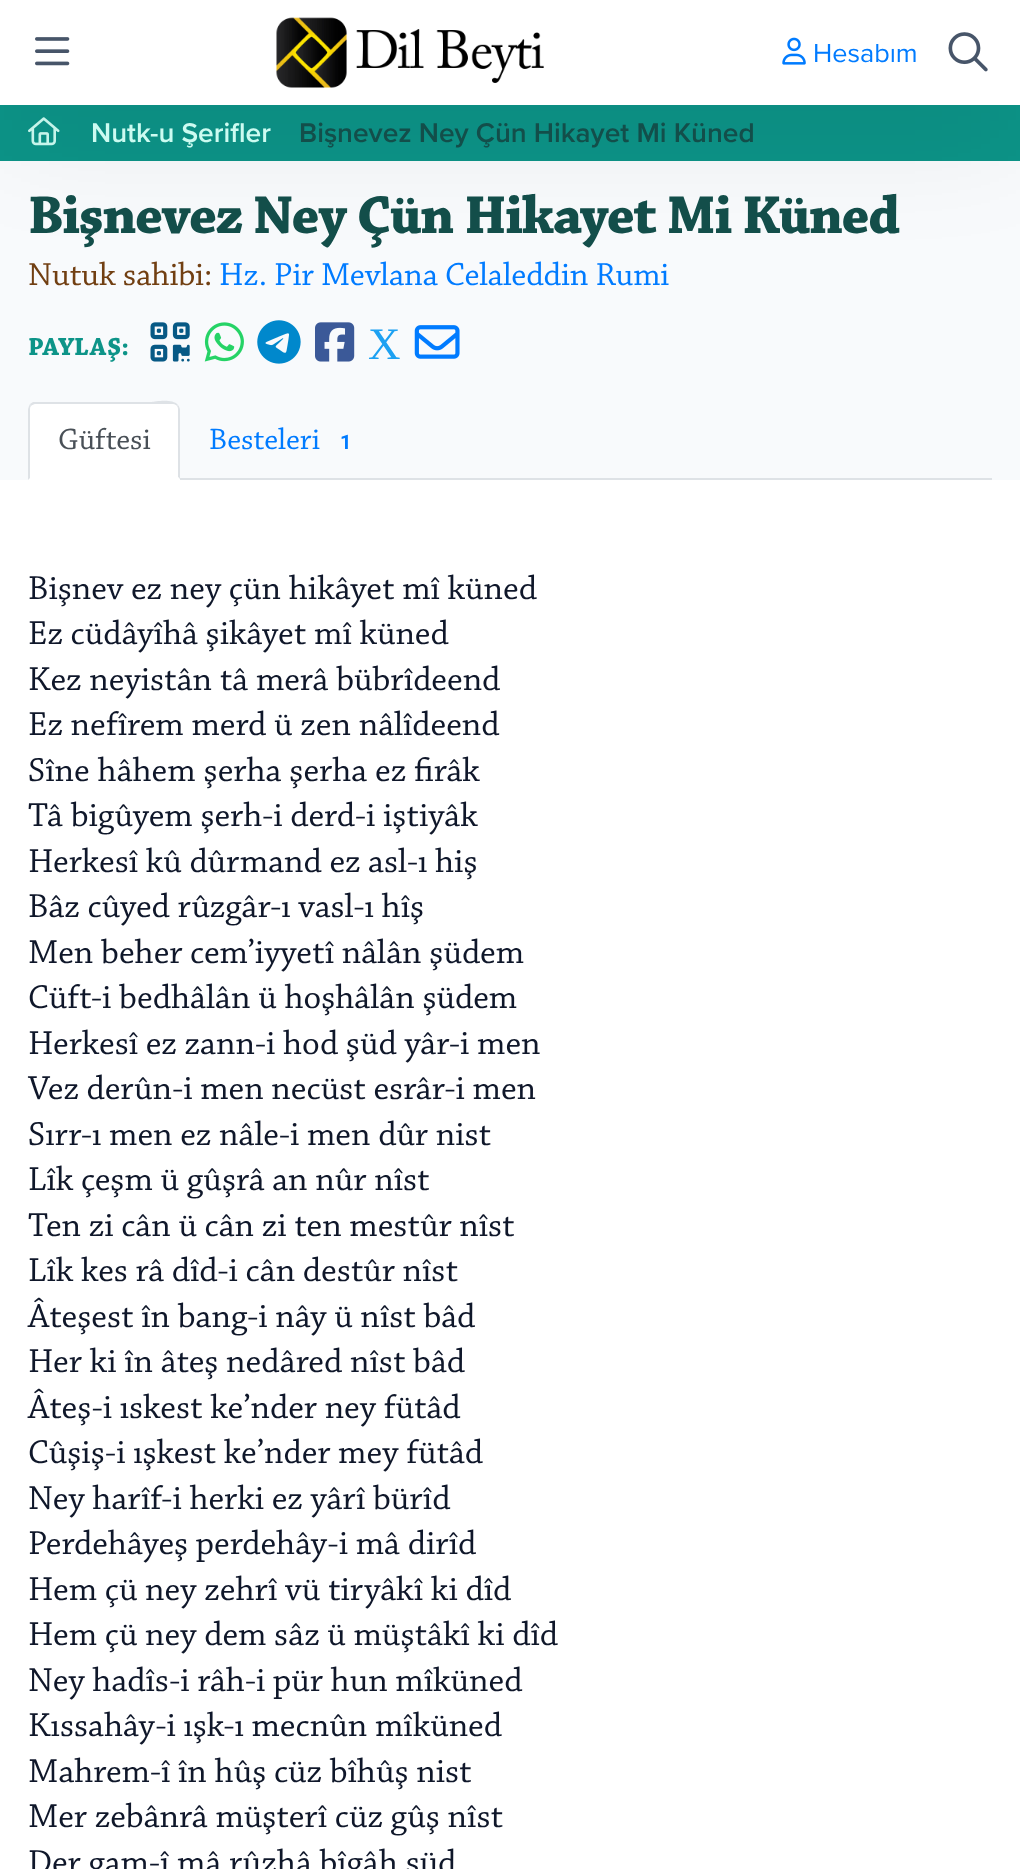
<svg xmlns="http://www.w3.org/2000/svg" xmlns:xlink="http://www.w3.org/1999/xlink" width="1020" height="1869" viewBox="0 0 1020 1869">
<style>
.cls-1{font:27px Proxima Nova;fill:#007bff}
.cls-2{font:600 28px Proxima Nova;fill:#ccfbf1}
.cls-3{font:600 28px Proxima Nova;fill:#134e4a}
.cls-4{font:bold 56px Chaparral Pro;letter-spacing:-1.4px;fill:#134e4a}
.cls-5{font:33.6px Chaparral Pro;letter-spacing:-0.15px;fill:#713f12}
.cls-6{font:33.6px Chaparral Pro;letter-spacing:-0.15px;fill:#007bff}
.cls-7{font:bold 26px Chaparral Pro;fill:#0d9488}
.cls-8{font:45px Liberation Serif;fill:#1da1f2}
.cls-9{font:31px Chaparral Pro;fill:#495057}
.cls-10{font:31px Chaparral Pro;fill:#007bff}
.cls-11{font:bold 20px Roboto;fill:#007bff}
.cls-12{font:35px Chaparral Pro;fill:#0f172a}
</style>
<rect width="100%" height="100%" fill="#f8fafc"/>
<rect fill="#0d9488" x="0" y="105" width="1020" height="56"/>
<image xlink:href="image4.png" x="28" y="117" width="32" height="29"/>
<rect fill="#000000" fill-opacity="0.07" filter="blur(58.5px)" x="0" y="30" width="1020" height="105"/>
<rect fill="#ffffff" x="0" y="0" width="1020" height="105"/>
<image xlink:href="image0.png" x="35" y="37" width="35" height="29"/>
<image xlink:href="image1.png" x="276" y="17" width="268" height="71"/>
<image xlink:href="image2.png" x="782" y="37" width="24" height="28"/>
<image xlink:href="image3.png" x="948" y="32" width="40" height="40"/>
<image xlink:href="image5.png" x="150" y="322" width="40" height="40"/>
<image xlink:href="image6.png" x="204" y="322" width="40" height="40"/>
<image xlink:href="image7.png" x="257" y="320" width="44" height="44"/>
<image xlink:href="image8.png" x="315" y="322" width="40" height="40"/>
<image xlink:href="image9.png" x="414" y="325" width="46" height="34"/>
<rect fill="#dee2e6" x="180" y="478" width="812" height="2"/>
<path fill="#ffffff" d="M35 403H173C177 403 180 406 180 410V480H28V410C28 406 31 403 35 403Z"/>
<path fill="#dee2e6" d="M35 404C34 404 32 405 31 406L30 404L33 402H152C154 402 172 398 178 405L177 406C176 405 175 404 173 404Z"/>
<path fill="#dee2e6" d="M178 405C179 406 180 408 180 410V479L178 477V410C178 409 178 407 177 406Z"/>
<path fill="#ffffff" d="M180 480H28L30 478H178V477Z"/>
<path fill="#dee2e6" d="M28 480L30 478V410C30 408 30 407 31 406L30 404C29 406 28 408 28 410Z"/>
<rect fill="#ffffff" x="0" y="480" width="1020" height="1389"/>
<text class="cls-1" x="813" y="62">Hesabım</text>
<text class="cls-2" x="91" y="142">Nutk-u Şerifler</text>
<text class="cls-3" x="299" y="142">Bişnevez Ney Çün Hikayet Mi Küned</text>
<text class="cls-4" x="28" y="233">Bişnevez Ney Çün Hikayet Mi Küned</text>
<text class="cls-5" x="28" y="285">Nutuk sahibi:</text>
<text class="cls-6" x="219" y="285">Hz. Pir Mevlana Celaleddin Rumi</text>
<text class="cls-7" x="28" y="355">PAYLAŞ:</text>
<text class="cls-8" x="368" y="359">X</text>
<text class="cls-9" x="58" y="449">Güftesi</text>
<text class="cls-10" x="209" y="449">Besteleri</text>
<text class="cls-11" x="340" y="449">1</text>
<text class="cls-12"><tspan x="28" y="599">Bişnev ez ney çün hikâyet mî küned</tspan><tspan x="28" y="644">Ez cüdâyîhâ şikâyet mî küned</tspan><tspan x="28" y="690">Kez neyistân tâ merâ bübrîdeend</tspan><tspan x="28" y="735">Ez nefîrem merd ü zen nâlîdeend</tspan><tspan x="28" y="781" word-spacing="0.25">Sîne hâhem şerha şerha ez firâk</tspan><tspan x="28" y="826">Tâ bigûyem şerh-i derd-i iştiyâk</tspan><tspan x="28" y="872">Herkesî kû dûrmand ez asl-ı hiş</tspan><tspan x="28" y="917">Bâz cûyed rûzgâr-ı vasl-ı hîş</tspan><tspan x="28" y="963">Men beher cem’iyyetî nâlân şüdem</tspan><tspan x="28" y="1008">Cüft-i bedhâlân ü hoşhâlân şüdem</tspan><tspan x="28" y="1054">Herkesî ez zann-i hod şüd yâr-i men</tspan><tspan x="28" y="1099">Vez derûn-i men necüst esrâr-i men</tspan><tspan x="28" y="1145">Sırr-ı men ez nâle-i men dûr nist</tspan><tspan x="28" y="1190">Lîk çeşm ü gûşrâ an nûr nîst</tspan><tspan x="28" y="1236">Ten zi cân ü cân zi ten mestûr nîst</tspan><tspan x="28" y="1281">Lîk kes râ dîd-i cân destûr nîst</tspan><tspan x="28" y="1327">Âteşest în bang-i nây ü nîst bâd</tspan><tspan x="28" y="1372">Her ki în âteş nedâred nîst bâd</tspan><tspan x="28" y="1418">Âteş-i ıskest ke’nder ney fütâd</tspan><tspan x="28" y="1463">Cûşiş-i ışkest ke’nder mey fütâd</tspan><tspan x="28" y="1509">Ney harîf-i herki ez yârî bürîd</tspan><tspan x="28" y="1554">Perdehâyeş perdehây-i mâ dirîd</tspan><tspan x="28" y="1600">Hem çü ney zehrî vü tiryâkî ki dîd</tspan><tspan x="28" y="1645">Hem çü ney dem sâz ü müştâkî ki dîd</tspan><tspan x="28" y="1691">Ney hadîs-i râh-i pür hun mîküned</tspan><tspan x="28" y="1736">Kıssahây-i ışk-ı mecnûn mîküned</tspan><tspan x="28" y="1782">Mahrem-î în hûş cüz bîhûş nist</tspan><tspan x="28" y="1827">Mer zebânrâ müşterî cüz gûş nîst</tspan><tspan x="28" y="1873">Der gam-î mâ rûzhâ bîgâh şüd</tspan></text>
</svg>
